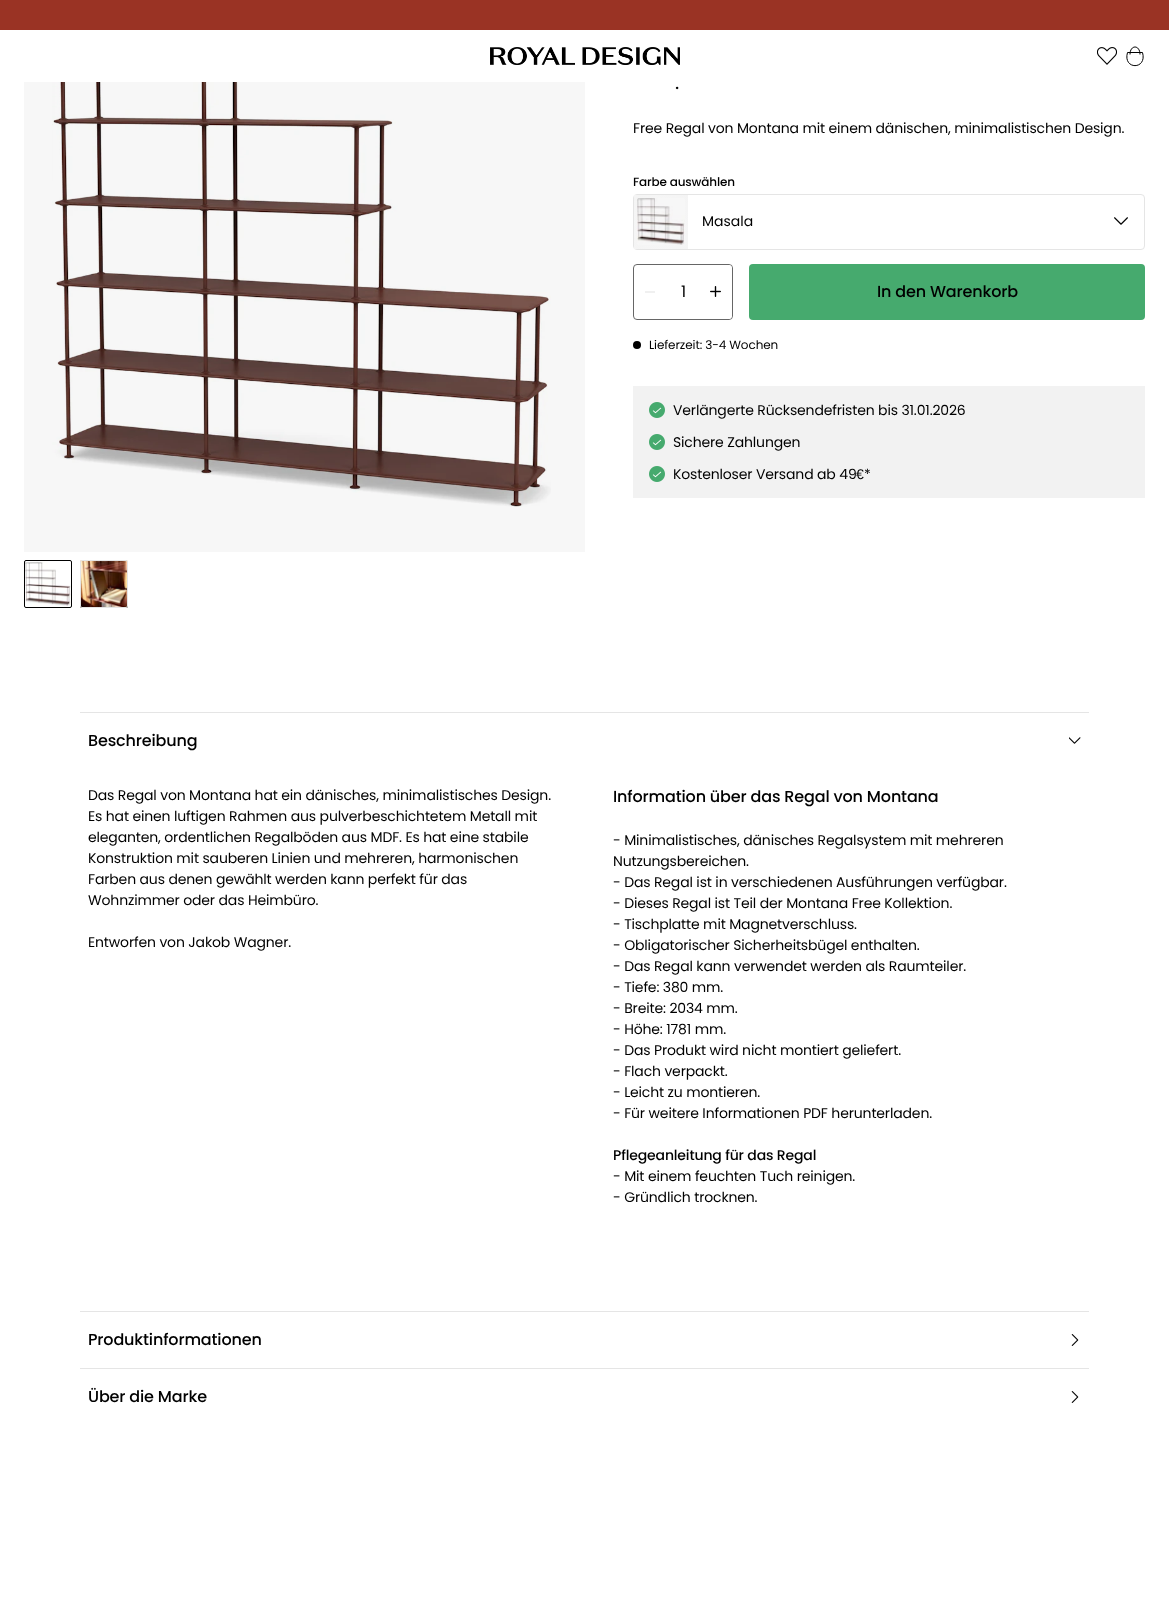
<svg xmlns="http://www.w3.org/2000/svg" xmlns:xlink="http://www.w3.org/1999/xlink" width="1169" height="1604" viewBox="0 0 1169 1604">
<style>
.cls-1{font:20px Poppins;fill:#000000}
.cls-2{font:14px Poppins;letter-spacing:-0.15px;fill:#000000}
.cls-3{font:500 12px Poppins;letter-spacing:-0.15px;fill:#000000}
.cls-4{font:14px Poppins;fill:#000000}
.cls-5{font:16px Poppins;letter-spacing:-0.15px;fill:#000000}
.cls-6{font:500 16px Poppins;letter-spacing:-0.15px;fill:#000000}
.cls-7{font:12px Poppins;letter-spacing:-0.1px;fill:#000000}
.cls-8{font:14px Liberation Sans;letter-spacing:-0.15px;fill:#000000}
.cls-9{font:500 14px Poppins;letter-spacing:-0.15px;fill:#000000}
</style>
<defs>
<radialGradient id="g1" gradientUnits="userSpaceOnUse" cx="661" cy="222" r="38"><stop offset="0.35" stop-color="#ffffff"/><stop offset="1" stop-color="#fcfcfc"/></radialGradient>
</defs>
<rect width="100%" height="100%" fill="#ffffff"/>
<rect fill="#9a3324" x="0" y="0" width="1169" height="30"/>
<image xlink:href="image0.png" x="490" y="47" width="190" height="18"/>
<image xlink:href="image1.png" x="1097" y="47" width="20" height="18"/>
<path fill="none" stroke="#000000" stroke-linejoin="round" d="M1127.5 52.5C1122.5 70 1147.5 70 1142.5 52.5Z"/>
<path fill="none" stroke="#000000" d="M1130 54.5C1130 44.5 1140 44.5 1140 54.5"/>
<image xlink:href="image2.png" x="52" y="82" width="499" height="425"/>
<rect fill="#000000" fill-opacity="0.03" x="24" y="82" width="561" height="470"/>
<image xlink:href="image3.png" x="24" y="560" width="48" height="47"/>
<rect fill="none" stroke="#000000" x="24.5" y="560.5" width="47" height="47" rx="1.5"/>
<image xlink:href="image4.png" x="80" y="560" width="48" height="48"/>
<rect fill="none" stroke="#e5e5e5" x="80.5" y="560.5" width="47" height="47" rx="1.5"/>
<rect fill="none" stroke="#e5e5e5" x="633.5" y="194.5" width="511" height="55" rx="3.5"/>
<rect fill="url(#g1)" x="634" y="195" width="54" height="54"/>
<image xlink:href="image5.png" x="637" y="198" width="48" height="47"/>
<rect fill="#000000" fill-opacity="0.03" x="634" y="195" width="54" height="54"/>
<image xlink:href="image6.png" x="1114" y="217" width="14" height="8"/>
<rect fill="none" stroke="#666666" x="633.5" y="264.5" width="99" height="55" rx="3.5"/>
<path fill="#ffffff" fill-opacity="0.1" d="M637 265H667V319H637C635.5 319 634 317.5 634 316V268C634 266.5 635.5 265 637 265Z"/>
<rect fill="#f0f0f0" x="645" y="291" width="10" height="2"/>
<path fill="#ffffff" d="M699 265H729C730.5 265 732 266.5 732 268V316C732 317.5 730.5 319 729 319H699Z"/>
<image xlink:href="image7.png" x="710" y="286" width="11" height="11"/>
<rect fill="#46aa6e" x="749" y="264" width="396" height="56" rx="4"/>
<circle fill="#000000" cx="637" cy="345" r="4"/>
<rect fill="#f2f2f2" x="633" y="386" width="512" height="112"/>
<image xlink:href="image8.png" x="649" y="402" width="16" height="16"/>
<image xlink:href="image8.png" x="649" y="434" width="16" height="16"/>
<image xlink:href="image8.png" x="649" y="466" width="16" height="16"/>
<rect fill="#e5e5e5" x="80" y="712" width="1009" height="1"/>
<image xlink:href="image9.png" x="1069" y="737" width="12" height="7"/>
<rect fill="#e5e5e5" x="80" y="1311" width="1009" height="1"/>
<image xlink:href="image10.png" x="1071" y="1334" width="8" height="12"/>
<rect fill="#e5e5e5" x="80" y="1368" width="1009" height="1"/>
<image xlink:href="image10.png" x="1071" y="1391" width="8" height="12"/>
<text class="cls-1" x="675" y="89">.</text>
<text class="cls-2" x="633" y="133">Free Regal von Montana mit einem dänischen, minimalistischen Design.</text>
<text class="cls-3" x="633" y="186">Farbe auswählen</text>
<text class="cls-4" x="702" y="226">Masala</text>
<text class="cls-5" x="681" y="297">1</text>
<text class="cls-6" x="877" y="297">In den Warenkorb</text>
<text class="cls-7" x="649" y="349">Lieferzeit: 3-4 Wochen</text>
<text class="cls-2" x="673" y="415">Verlängerte Rücksendefristen bis 31.01.2026</text>
<text class="cls-2" x="673" y="447">Sichere Zahlungen</text>
<text class="cls-2" x="673" y="479">Kostenloser Versand ab 49</text>
<text class="cls-8" x="856" y="479">€</text>
<text class="cls-2" x="864" y="479">*</text>
<text class="cls-6" x="88" y="746">Beschreibung</text>
<text class="cls-2" x="88" y="800">Das Regal von Montana hat ein dänisches, minimalistisches Design.</text>
<text class="cls-6" x="613" y="802">Information über das Regal von Montana</text>
<text class="cls-2"><tspan x="88" y="821">Es hat einen luftigen Rahmen aus pulverbeschichtetem Metall mit</tspan><tspan x="88" y="842">eleganten, ordentlichen Regalböden aus MDF. Es hat eine stabile</tspan></text>
<text class="cls-2" x="613" y="845">- Minimalistisches, dänisches Regalsystem mit mehreren</text>
<text class="cls-2" x="88" y="863">Konstruktion mit sauberen Linien und mehreren, harmonischen</text>
<text class="cls-2" x="613" y="866">Nutzungsbereichen.</text>
<text class="cls-2" x="88" y="884">Farben aus denen gewählt werden kann perfekt für das</text>
<text class="cls-2" x="613" y="887">- Das Regal ist in verschiedenen Ausführungen verfügbar.</text>
<text class="cls-2" x="88" y="905">Wohnzimmer oder das Heimbüro.</text>
<text class="cls-2"><tspan x="613" y="908">- Dieses Regal ist Teil der Montana Free Kollektion.</tspan><tspan x="613" y="929">- Tischplatte mit Magnetverschluss.</tspan></text>
<text class="cls-2" x="88" y="947">Entworfen von Jakob Wagner.</text>
<text class="cls-2"><tspan x="613" y="950">- Obligatorischer Sicherheitsbügel enthalten.</tspan><tspan x="613" y="971">- Das Regal kann verwendet werden als Raumteiler.</tspan><tspan x="613" y="992">- Tiefe: 380 mm.</tspan><tspan x="613" y="1013">- Breite: 2034 mm.</tspan><tspan x="613" y="1034">- Höhe: 1781 mm.</tspan><tspan x="613" y="1055">- Das Produkt wird nicht montiert geliefert.</tspan><tspan x="613" y="1076">- Flach verpackt.</tspan><tspan x="613" y="1097">- Leicht zu montieren.</tspan><tspan x="613" y="1118">- Für weitere Informationen PDF herunterladen.</tspan></text>
<text class="cls-9" x="613" y="1160">Pflegeanleitung für das Regal</text>
<text class="cls-2"><tspan x="613" y="1181">- Mit einem feuchten Tuch reinigen.</tspan><tspan x="613" y="1202">- Gründlich trocknen.</tspan></text>
<text class="cls-6" x="88" y="1345">Produktinformationen</text>
<text class="cls-6" x="88" y="1402">Über die Marke</text>
</svg>
